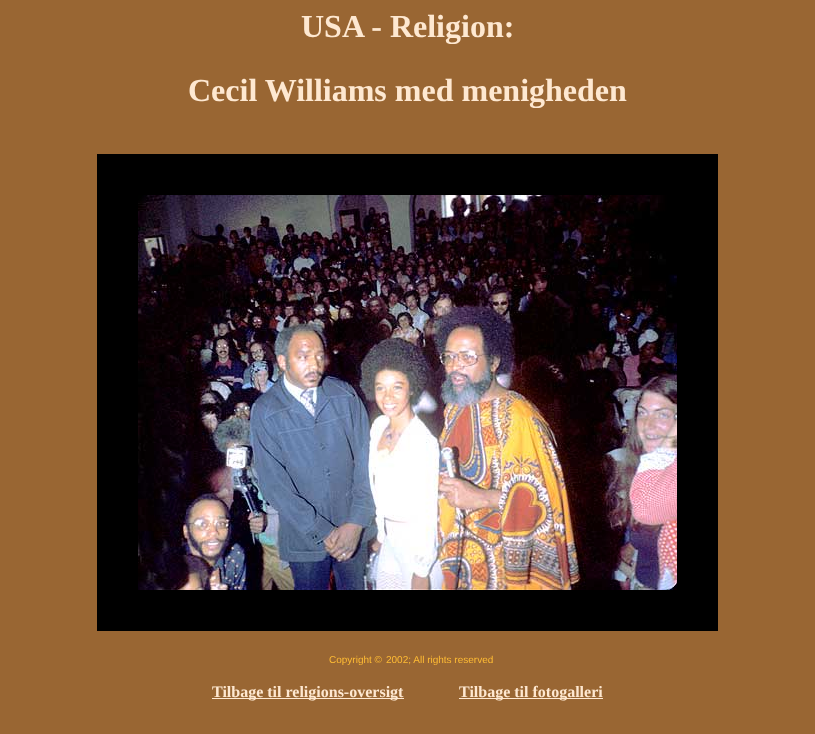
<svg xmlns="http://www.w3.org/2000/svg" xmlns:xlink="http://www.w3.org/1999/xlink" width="815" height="734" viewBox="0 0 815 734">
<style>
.cls-1{font:bold 32px Liberation Serif;fill:#fee8d1}
.cls-2{font:10px Liberation Sans;fill:#ffbc34}
.cls-3{font:bold 16px Liberation Serif;fill:#fee8d1}
</style>
<rect width="100%" height="100%" fill="#996633"/>
<rect fill="#000000" x="97" y="154" width="621" height="477"/>
<image xlink:href="image0.png" x="138" y="195" width="539" height="395"/>
<rect fill="#fee8d1" x="212" y="698" width="192" height="1"/>
<rect fill="#fee8d1" x="459" y="698" width="144" height="1"/>
<text class="cls-1" x="301" y="37">USA - Religion:</text>
<text class="cls-1" x="188" y="101">Cecil Williams med menigheden</text>
<text class="cls-2" x="329" y="663">Copyright ©</text>
<text class="cls-2" x="386" y="663">2002; All rights reserved</text>
<text class="cls-3" x="212" y="697">Tilbage til religions-oversigt</text>
<text class="cls-3" x="459" y="697">Tilbage til fotogalleri</text>
</svg>
